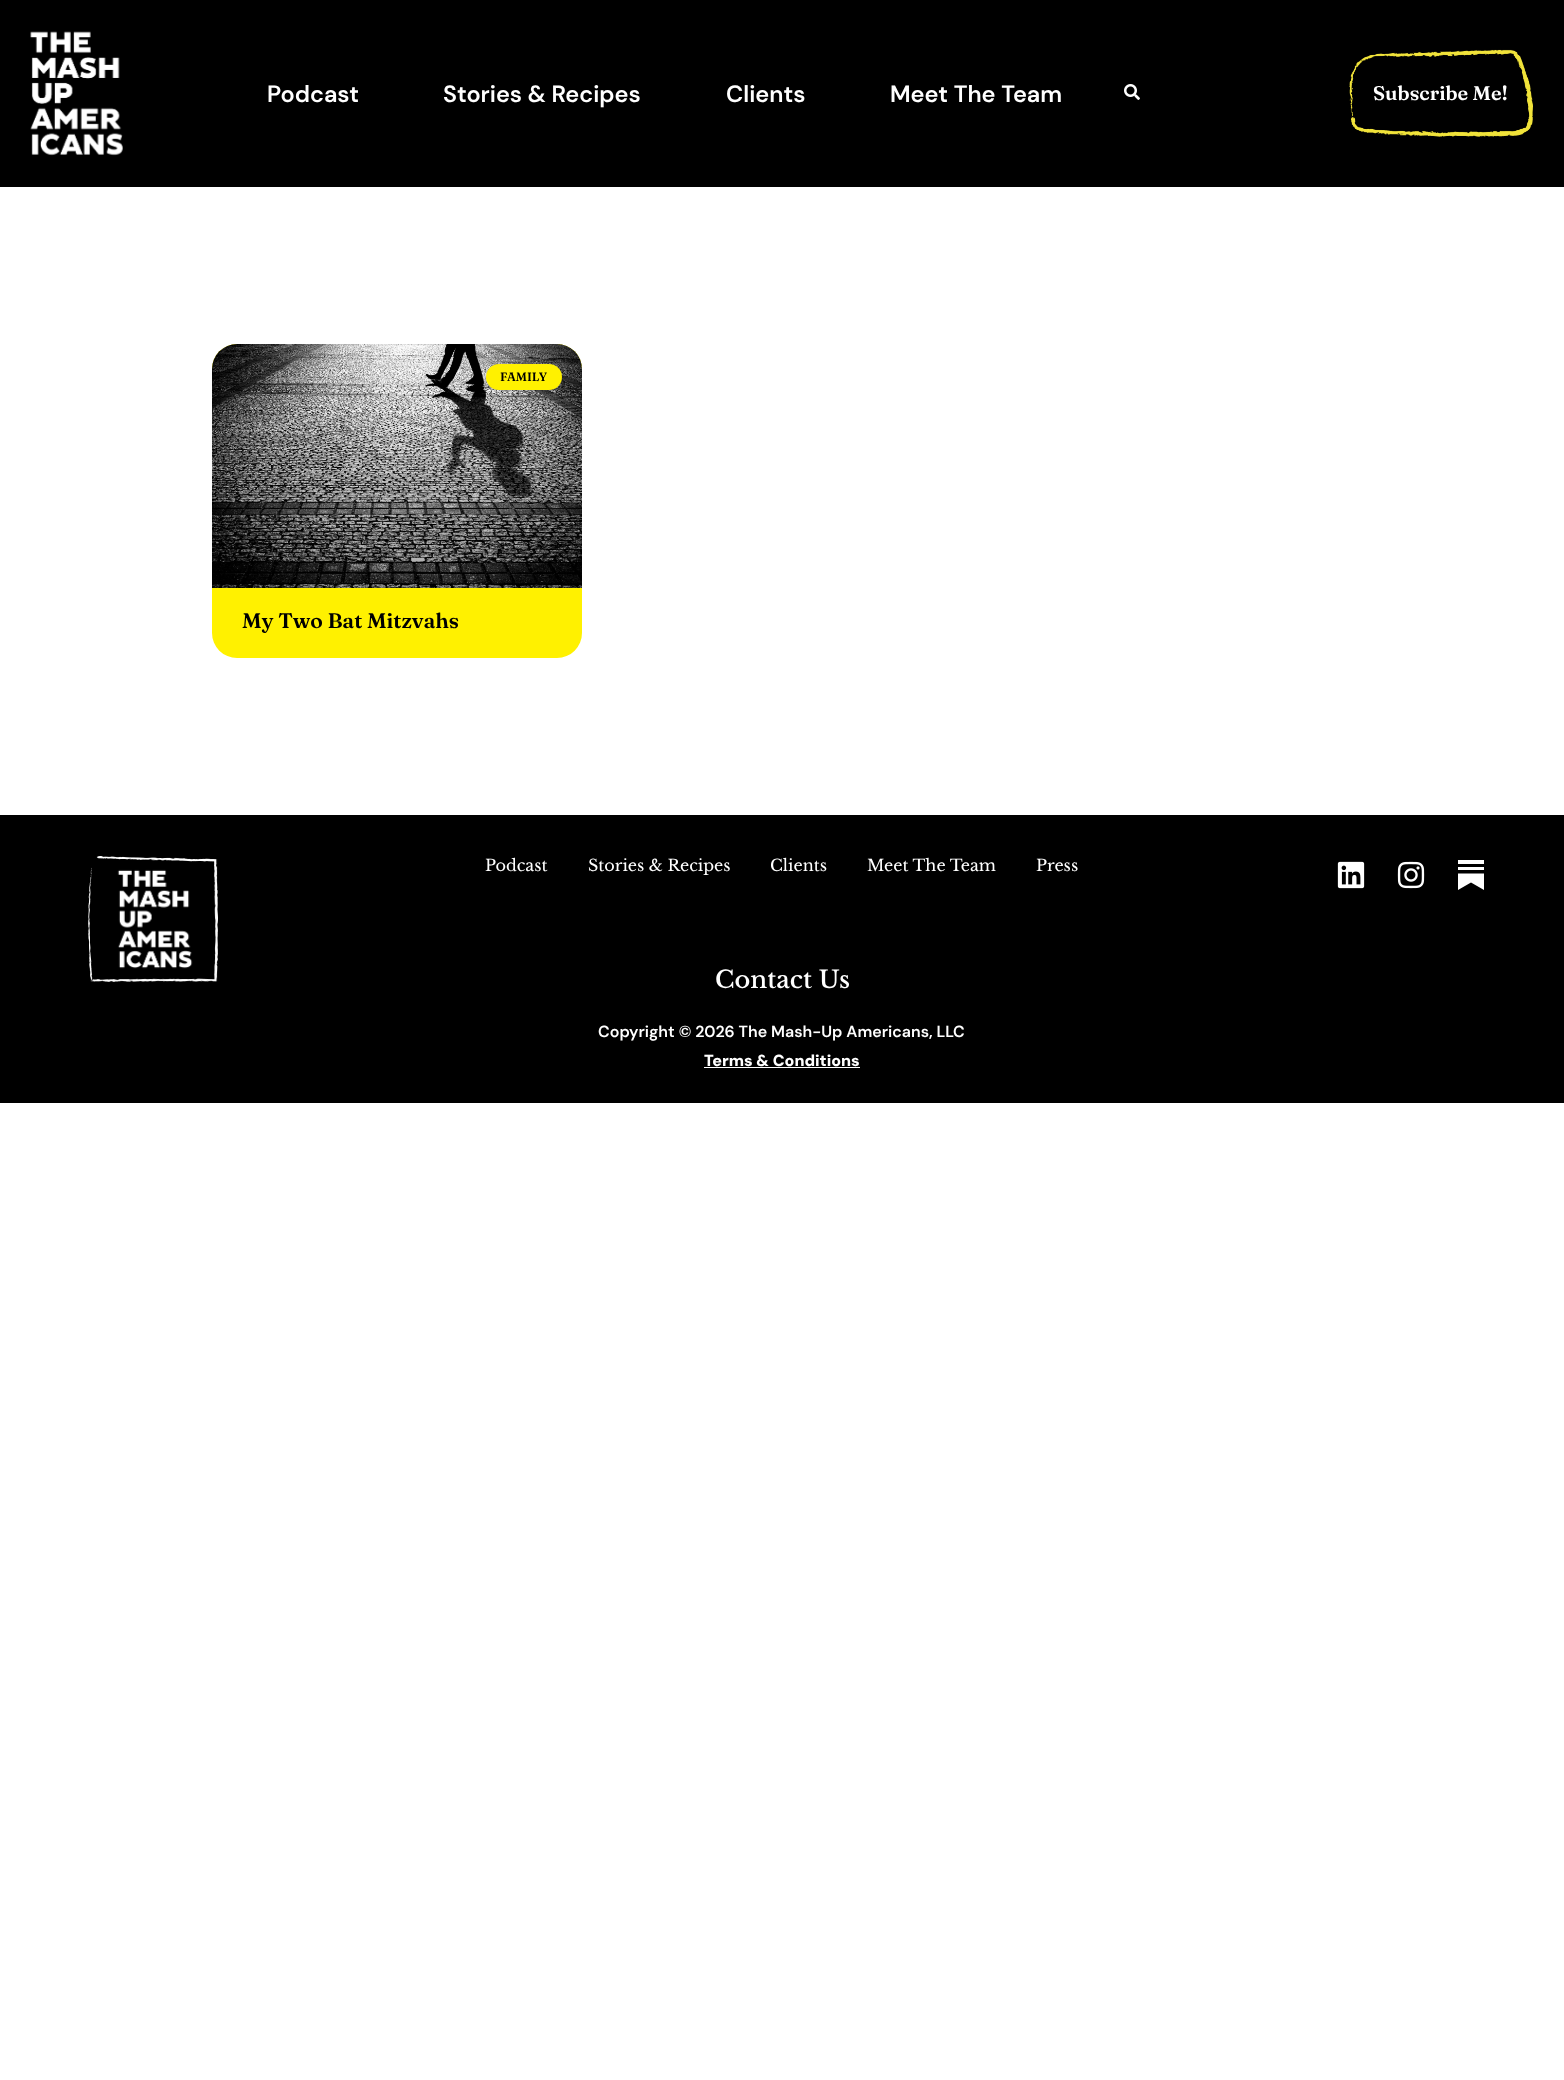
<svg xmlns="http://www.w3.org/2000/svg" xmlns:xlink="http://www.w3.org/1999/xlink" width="1564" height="2080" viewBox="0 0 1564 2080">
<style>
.cls-1{font:600 23.5px 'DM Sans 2';fill:#ffffff}
.cls-2{font:600 19.75px Fraunces;fill:#ffffff}
.cls-3{font:600 12px Fraunces;fill:#000000}
.cls-4{font:600 21px Fraunces;fill:#000000}
.cls-5{font:16px Libre Baskerville;fill:#ffffff}
.cls-6{font:500 24px Libre Baskerville;fill:#ffffff}
.cls-7{font:600 16px DM Sans;fill:#ffffff}
.cls-8{font:900 16px DM Sans;fill:#ffffff}
</style>
<defs>
<linearGradient id="g1" gradientUnits="userSpaceOnUse" x1="397" y1="588" x2="397" y2="344"><stop offset="0" stop-color="#000000" stop-opacity="0.35"/><stop offset="0.75" stop-color="#000000" stop-opacity="0"/></linearGradient>
</defs>
<rect width="100%" height="100%" fill="#ffffff"/>
<rect fill="#000000" x="0" y="0" width="1564" height="187"/>
<image xlink:href="image0.png" x="30" y="31" width="93" height="125"/>
<image xlink:href="image1.png" x="1124" y="84" width="16" height="16"/>
<rect fill="#fff100" x="212" y="344" width="370" height="314" rx="25"/>
<image xlink:href="image3.png" x="212" y="344" width="370" height="244"/>
<rect fill="url(#g1)" x="212" y="416" width="370" height="172"/>
<rect fill="#fff100" x="486" y="364" width="76" height="26" rx="13"/>
<rect fill="#000000" x="0" y="815" width="1564" height="288"/>
<image xlink:href="image4.png" x="88" y="856" width="130" height="126"/>
<image xlink:href="image5.png" x="1337" y="861" width="28" height="28"/>
<image xlink:href="image6.png" x="1397" y="861" width="28" height="28"/>
<path fill="#ffffff" d="M1484 873.5V890L1471 882.5L1458 890V873.5Z"/>
<rect fill="#ffffff" x="1458" y="860" width="26" height="4"/>
<rect fill="#ffffff" x="1458" y="867" width="26" height="3"/>
<rect fill="#ffffff" x="704" y="1067" width="156" height="1"/>
<text class="cls-1" x="267" y="102">Podcast</text>
<text class="cls-1" x="443" y="102">Stories &amp; Recipes</text>
<text class="cls-1" x="726" y="102">Clients</text>
<text class="cls-1" x="890" y="102">Meet The Team</text>
<text class="cls-2" x="1373" y="100">Subscribe Me!</text>
<image xlink:href="image2.png" x="1349" y="49" width="184" height="88"/>
<text class="cls-3" x="500" y="381">FAMILY</text>
<text class="cls-4" x="242" y="628">My Two Bat Mitzvahs</text>
<text class="cls-5" x="485" y="871">Podcast</text>
<text class="cls-5" x="588" y="871">Stories &amp; Recipes</text>
<text class="cls-5" x="770" y="871">Clients</text>
<text class="cls-5" x="867" y="871">Meet The Team</text>
<text class="cls-5" x="1036" y="871">Press</text>
<text class="cls-6" x="715" y="988">Contact Us</text>
<text class="cls-7" x="598" y="1037">Copyright © 2026 The Mash-Up Americans, LLC</text>
<text class="cls-8" x="704" y="1066">Terms &amp; Conditions</text>
</svg>
